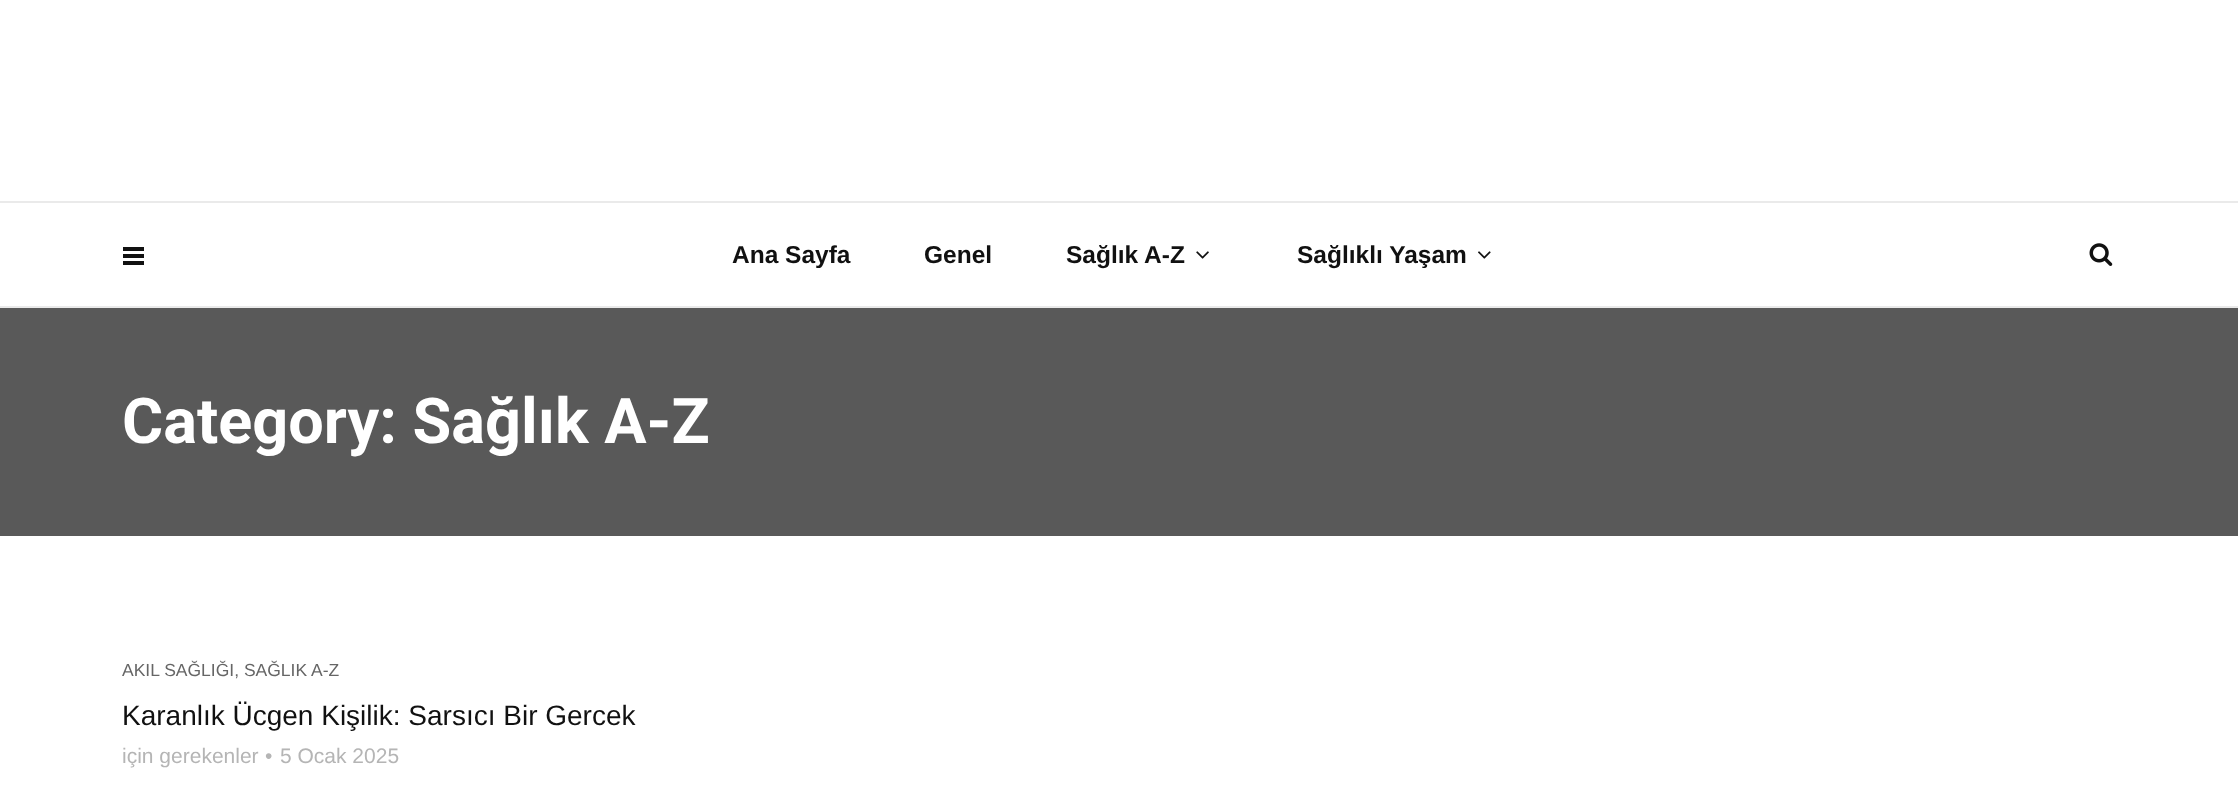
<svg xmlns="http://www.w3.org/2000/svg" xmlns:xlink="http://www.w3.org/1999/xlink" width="2238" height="798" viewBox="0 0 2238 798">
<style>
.cls-1{font:bold 24.5px Liberation Sans;fill:#111111}
.cls-2{font:bold 63px Roboto;fill:#ffffff}
.cls-3{font:17.5px Liberation Sans;fill:#666666}
.cls-4{font:28px Liberation Sans;fill:#111111}
.cls-5{font:21px Liberation Sans;fill:#b5b5b5}
</style>
<rect width="100%" height="100%" fill="#ffffff"/>
<rect fill="#eaeaea" x="0" y="306" width="2238" height="2"/>
<rect fill="#eaeaea" x="0" y="201" width="2238" height="2"/>
<rect fill="#111111" x="123" y="247" width="21" height="4"/>
<rect fill="#111111" x="123" y="254" width="21" height="4"/>
<rect fill="#111111" x="123" y="261" width="21" height="4"/>
<image xlink:href="image0.png" x="2089" y="243" width="24" height="23"/>
<image xlink:href="image1.png" x="1196" y="251" width="13" height="8"/>
<image xlink:href="image2.png" x="1478" y="251" width="13" height="8"/>
<rect fill="#595959" x="0" y="308" width="2238" height="228"/>
<text class="cls-1" x="732" y="263">Ana Sayfa</text>
<text class="cls-1" x="924" y="263">Genel</text>
<text class="cls-1" x="1066" y="263">Sağlık A-Z</text>
<text class="cls-1" x="1297" y="263">Sağlıklı Yaşam</text>
<text class="cls-2" x="122" y="443">Category: Sağlık A-Z</text>
<text class="cls-3" x="122" y="676">AKIL SAĞLIĞI, SAĞLIK A-Z</text>
<text class="cls-4" x="122" y="725">Karanlık Ücgen Kişilik: Sarsıcı Bir Gercek</text>
<text class="cls-5" x="122" y="763">için gerekenler</text>
<text class="cls-5" x="265" y="763">•</text>
<text class="cls-5" x="280" y="763">5 Ocak 2025</text>
</svg>
